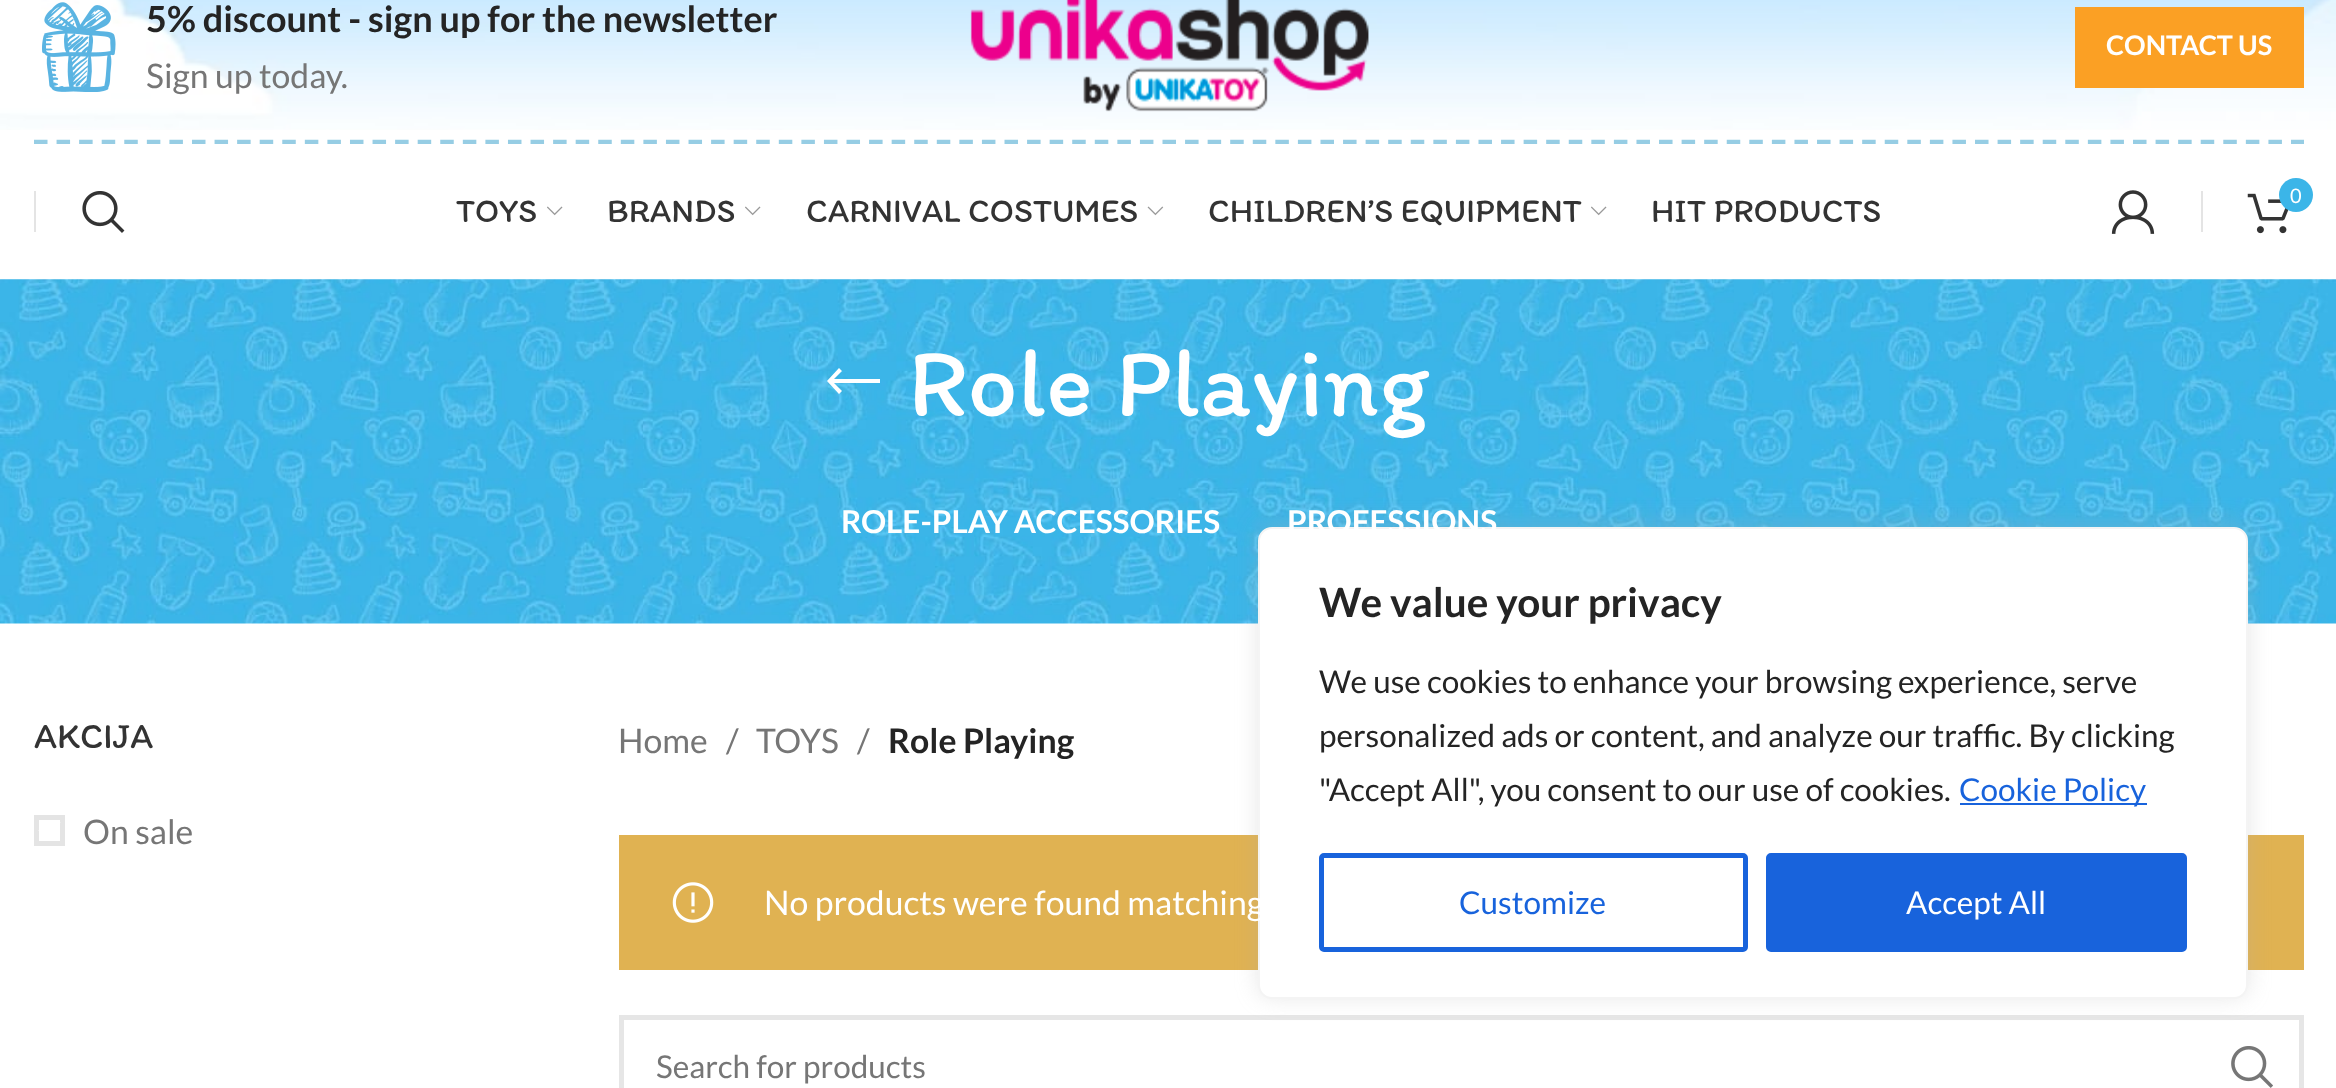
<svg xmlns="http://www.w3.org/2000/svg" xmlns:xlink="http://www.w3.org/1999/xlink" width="2336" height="1088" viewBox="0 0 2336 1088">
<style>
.cls-1{font:bold 36px Lato;fill:#242424}
.cls-2{font:33.75px Lato;fill:#767676}
.cls-3{font:bold 27px Lato;fill:#ffffff}
.cls-4{font:33.75px Itim;fill:#333333}
.cls-5{font:20px Lato;fill:#ffffff}
.cls-6{font:99px Itim;fill:#ffffff}
.cls-7{font:bold 31.5px Lato;fill:#ffffff}
.cls-8{font:36px Itim;fill:#333333}
.cls-9{font:bold 33.75px Lato;fill:#242424}
.cls-10{font:33.75px Lato;fill:#ffffff}
.cls-11{font:31.5px Lato;fill:#767676}
.cls-12{font:bold 40.5px Lato;fill:#242424}
.cls-13{font:31.5px Lato;fill:#242424}
.cls-14{font:31.5px Lato;fill:#1863dc}
.cls-15{font:31.5px Lato;fill:#ffffff}
</style>
<rect width="100%" height="100%" fill="#ffffff"/>
<image xlink:href="image0.png" x="0" y="0" width="2336" height="130"/>
<path fill="none" stroke="#96cde4" stroke-width="4.5" stroke-dasharray="13.5 9.07" d="M34 142H2304"/>
<image xlink:href="image1.png" x="42" y="2" width="74" height="90"/>
<image xlink:href="image2.png" x="970" y="0" width="399" height="112"/>
<rect fill="#fba024" x="2075" y="7" width="229" height="81"/>
<rect fill="#ffffff" x="34" y="144" width="2270" height="1"/>
<rect fill="#e4e4e4" x="34" y="191" width="2" height="41"/>
<image xlink:href="image3.png" x="82" y="191" width="43" height="42"/>
<image xlink:href="image4.png" x="547" y="206" width="16" height="10"/>
<image xlink:href="image4.png" x="745" y="206" width="16" height="10"/>
<image xlink:href="image5.png" x="1147" y="206" width="17" height="10"/>
<image xlink:href="image4.png" x="1591" y="206" width="16" height="10"/>
<image xlink:href="image6.png" x="2111" y="190" width="44" height="44"/>
<rect fill="#e4e4e4" x="2201" y="191" width="2" height="41"/>
<image xlink:href="image7.png" x="2247" y="193" width="42" height="41"/>
<circle fill="#3bb5e8" cx="2296" cy="195" r="17"/>
<image xlink:href="image8.png" x="0" y="279" width="2336" height="345"/>
<path fill="#ffffff" d="M842 391L834 383H880V379H834L842 371L839 368L827 381L839 394Z"/>
<rect fill="none" stroke="#e4e4e4" stroke-width="5" x="36.5" y="817.5" width="26" height="26"/>
<path fill="#ffffff" d="M60.5 822.5L59.5 821.5L45.5 835L39.5 829L38.5 830.5L45.5 837.5Z"/>
<rect fill="#e0b252" x="619" y="835" width="1685" height="135"/>
<image xlink:href="image9.png" x="672" y="882" width="42" height="41"/>
<rect fill="none" stroke="#e6e6e6" stroke-width="5" x="621.5" y="1017.5" width="1680" height="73"/>
<image xlink:href="image10.png" x="2231" y="1046" width="42" height="42"/>
<rect fill="#acabab" fill-opacity="0.3" filter="blur(11px)" x="1258" y="524" width="990" height="473" rx="14"/>
<rect fill="#ffffff" stroke="#f4f4f4" stroke-width="2" x="1259" y="528" width="988" height="470" rx="13"/>
<rect fill="#1863dc" x="1960" y="803" width="187" height="2"/>
<rect fill="none" stroke="#1863dc" stroke-width="5" x="1321.5" y="855.5" width="424" height="94" rx="2.5"/>
<rect fill="#1863dc" stroke="#1863dc" stroke-width="5" x="1768.5" y="855.5" width="416" height="94" rx="2.5"/>
<text class="cls-1" x="146" y="32">5% discount - sign up for the newsletter</text>
<text class="cls-2" x="146" y="88">Sign up today.</text>
<text class="cls-3" x="2106" y="55">CONTACT US</text>
<text class="cls-4" x="456" y="222">TOYS</text>
<text class="cls-4" x="607" y="222">BRANDS</text>
<text class="cls-4" x="806" y="222">CARNIVAL COSTUMES</text>
<text class="cls-4" x="1208" y="222">CHILDREN’S EQUIPMENT</text>
<text class="cls-4" x="1651" y="222">HIT PRODUCTS</text>
<text class="cls-5" x="2290" y="203">0</text>
<text class="cls-6" x="908" y="416">Role Playing</text>
<text class="cls-7" x="841" y="533">ROLE-PLAY ACCESSORIES</text>
<text class="cls-7" x="1287" y="533">PROFESSIONS</text>
<text class="cls-8" x="34" y="748">AKCIJA</text>
<text class="cls-2" x="83" y="844">On sale</text>
<text class="cls-2" x="618" y="753">Home</text>
<text class="cls-2" x="726" y="753">/</text>
<text class="cls-2" x="756" y="753">TOYS</text>
<text class="cls-2" x="857" y="753">/</text>
<text class="cls-9" x="888" y="753">Role Playing</text>
<text class="cls-10" x="764" y="915">No products were found matching</text>
<text class="cls-11" x="656" y="1078">Search for products</text>
<text class="cls-12" x="1319" y="617">We value your privacy</text>
<text class="cls-13"><tspan x="1319" y="693">We use cookies to enhance your browsing experience, serve</tspan><tspan x="1319" y="747">personalized ads or content, and analyze our traffic. By clicking</tspan><tspan x="1319" y="801">"Accept All", you consent to our use of cookies.</tspan></text>
<text class="cls-14" x="1959" y="801">Cookie Policy</text>
<text class="cls-14" x="1459" y="914">Customize</text>
<text class="cls-15" x="1906" y="914">Accept All</text>
</svg>
